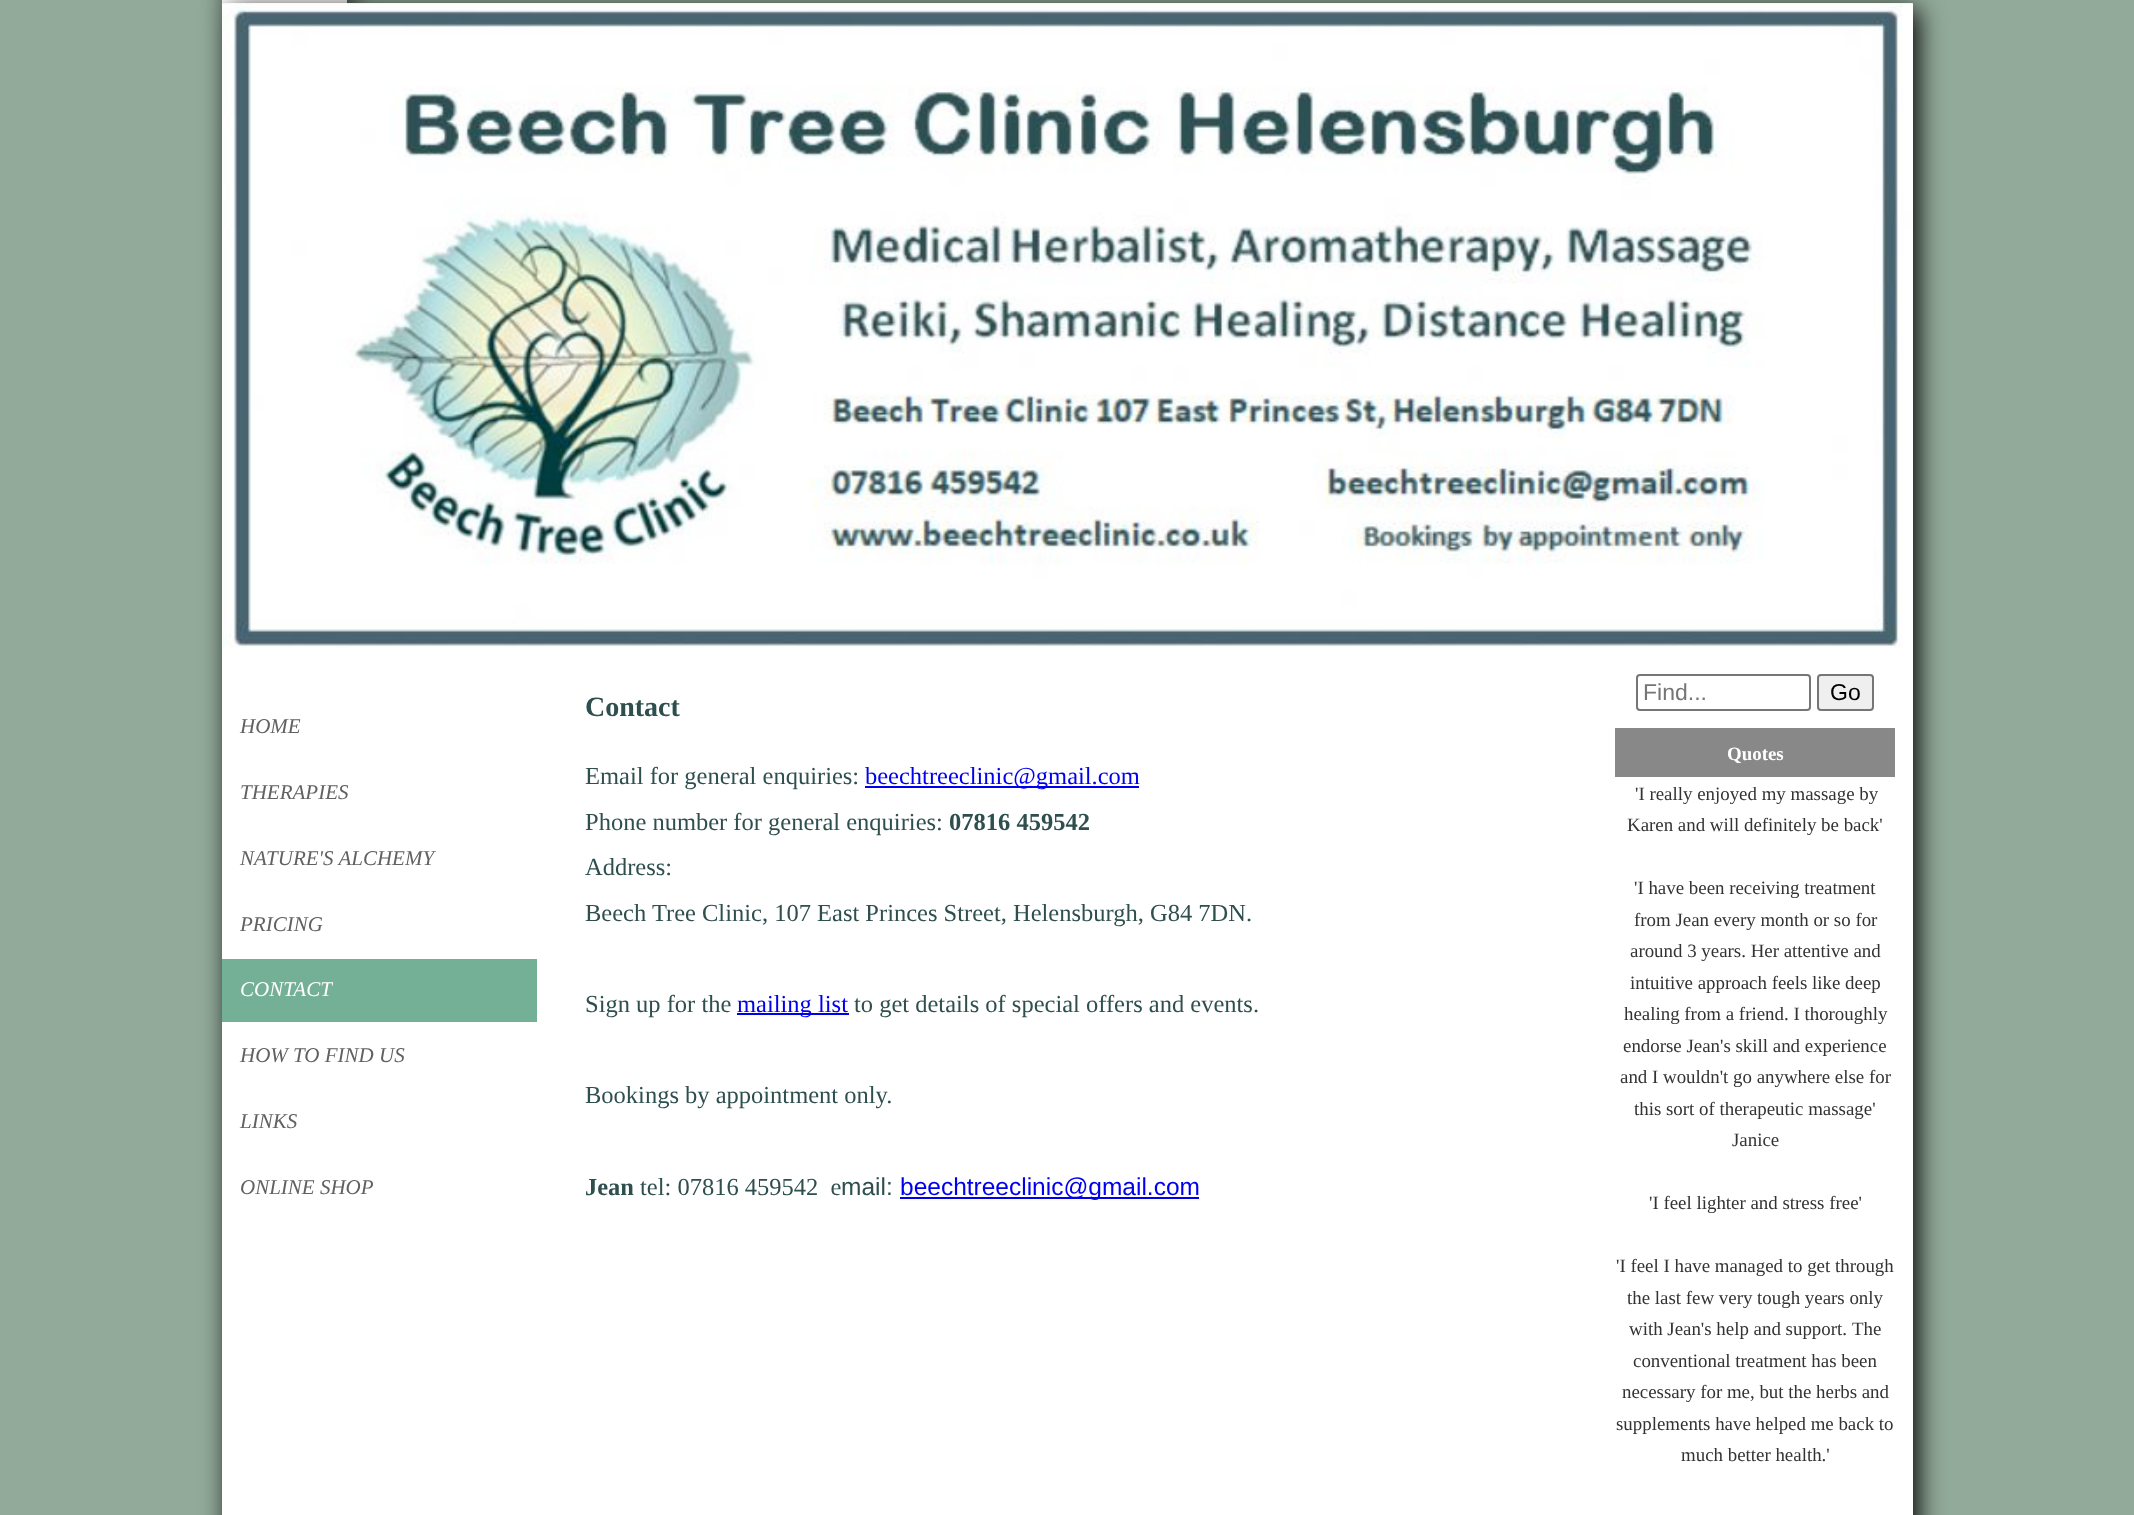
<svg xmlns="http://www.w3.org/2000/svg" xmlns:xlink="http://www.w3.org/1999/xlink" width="2134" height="1515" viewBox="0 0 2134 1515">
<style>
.cls-1{font:italic 21px Liberation Serif;fill:#616161}
.cls-2{font:italic 21px Liberation Serif;fill:#ffffff}
.cls-3{font:bold 28px Liberation Serif;fill:#2f4f4f}
.cls-4{font:24.5px Liberation Serif;fill:#2f4f4f}
.cls-5{font:24.5px Liberation Serif;fill:#0000ee}
.cls-6{font:bold 24.5px Liberation Serif;fill:#2f4f4f}
.cls-7{font:24.5px Liberation Sans;fill:#2f4f4f}
.cls-8{font:24.5px Liberation Sans;fill:#0000ee}
.cls-9{font:23px Liberation Sans;fill:#757575}
.cls-10{font:23px Liberation Sans;fill:#000000}
.cls-11{font:bold 18.9px Liberation Serif;fill:#ffffff}
.cls-12{font:18.9px Liberation Serif;fill:#333333}
</style>
<rect width="100%" height="100%" fill="#92aa9a"/>
<rect fill="#000000" filter="blur(13px)" x="228" y="-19" width="124" height="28" rx="9"/>
<rect fill="#ffffff" x="222" y="0" width="125" height="4"/>
<rect fill="#000000" filter="blur(13px)" x="228" y="9" width="1690" height="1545"/>
<rect fill="#ffffff" x="222" y="4" width="1691" height="1511"/>
<image xlink:href="image0.png" x="222" y="3" width="1691" height="645"/>
<image xlink:href="image1.png" x="229" y="3" width="1684" height="1"/>
<rect fill="#73b096" x="222" y="959" width="315" height="63"/>
<rect fill="#0000ee" x="865" y="786" width="274" height="2"/>
<rect fill="#0000ee" x="737" y="1013" width="112" height="2"/>
<rect fill="#0000ee" x="900" y="1197" width="299" height="2"/>
<rect fill="none" stroke="#767676" stroke-width="2" x="1637" y="675" width="173" height="35" rx="3"/>
<rect fill="#efefef" stroke="#767676" stroke-width="2" x="1818" y="675" width="55" height="35" rx="3"/>
<rect fill="#888888" x="1615" y="728" width="280" height="49"/>
<text class="cls-1" x="240" y="733">HOME</text>
<text class="cls-1" x="240" y="799">THERAPIES</text>
<text class="cls-1" x="240" y="865">NATURE'S ALCHEMY</text>
<text class="cls-1" x="240" y="931">PRICING</text>
<text class="cls-2" x="240" y="996">CONTACT</text>
<text class="cls-1" x="240" y="1062">HOW TO FIND US</text>
<text class="cls-1" x="240" y="1128">LINKS</text>
<text class="cls-1" x="240" y="1194">ONLINE SHOP</text>
<text class="cls-3" x="585" y="716">Contact</text>
<text class="cls-4" x="585" y="784">Email for general enquiries:</text>
<text class="cls-5" x="865" y="784">beechtreeclinic@gmail.com</text>
<text class="cls-4" x="585" y="830">Phone number for general enquiries:</text>
<text class="cls-6" x="949" y="830">07816 459542</text>
<text class="cls-4"><tspan x="585" y="875">Address:</tspan><tspan x="585" y="921">Beech Tree Clinic, 107 East Princes Street, Helensburgh, G84 7DN.</tspan></text>
<text class="cls-4" x="585" y="1012">Sign up for the</text>
<text class="cls-5" x="737" y="1012">mailing list</text>
<text class="cls-4" x="854" y="1012">to get details of special offers and events.</text>
<text class="cls-4" x="585" y="1103">Bookings by appointment only.</text>
<text class="cls-6" x="585" y="1195">Jean</text>
<text class="cls-4" xml:space="preserve" x="640" y="1195">tel: 07816 459542  e</text>
<text class="cls-7" x="841" y="1195">mail:</text>
<text class="cls-8" x="900" y="1195">beechtreeclinic@gmail.com</text>
<text class="cls-9" x="1643" y="700">Find...</text>
<text class="cls-10" x="1830" y="700">Go</text>
<text class="cls-11" x="1727" y="760">Quotes</text>
<text class="cls-12" x="1635" y="800">'I really enjoyed my massage by</text>
<text class="cls-12" x="1627" y="831">Karen and will definitely be back'</text>
<text class="cls-12"><tspan x="1634" y="894">'I have been receiving treatment</tspan><tspan x="1634" y="926">from Jean every month or so for</tspan></text>
<text class="cls-12"><tspan x="1630" y="957">around 3 years. Her attentive and</tspan><tspan x="1630" y="989">intuitive approach feels like deep</tspan></text>
<text class="cls-12" x="1624" y="1020">healing from a friend. I thoroughly</text>
<text class="cls-12" x="1623" y="1052">endorse Jean's skill and experience</text>
<text class="cls-12" x="1620" y="1083">and I wouldn't go anywhere else for</text>
<text class="cls-12" x="1634" y="1115">this sort of therapeutic massage'</text>
<text class="cls-12" x="1732" y="1146">Janice</text>
<text class="cls-12" x="1649" y="1209">'I feel lighter and stress free'</text>
<text class="cls-12" x="1616" y="1272">'I feel I have managed to get through</text>
<text class="cls-12" x="1627" y="1304">the last few very tough years only</text>
<text class="cls-12" x="1629" y="1335">with Jean's help and support.</text>
<text class="cls-12" x="1852" y="1335">The</text>
<text class="cls-12" x="1633" y="1367">conventional treatment has been</text>
<text class="cls-12" x="1622" y="1398">necessary for me, but the herbs and</text>
<text class="cls-12" x="1616" y="1430">supplements have helped me back to</text>
<text class="cls-12" x="1681" y="1461">much better health.'</text>
</svg>
